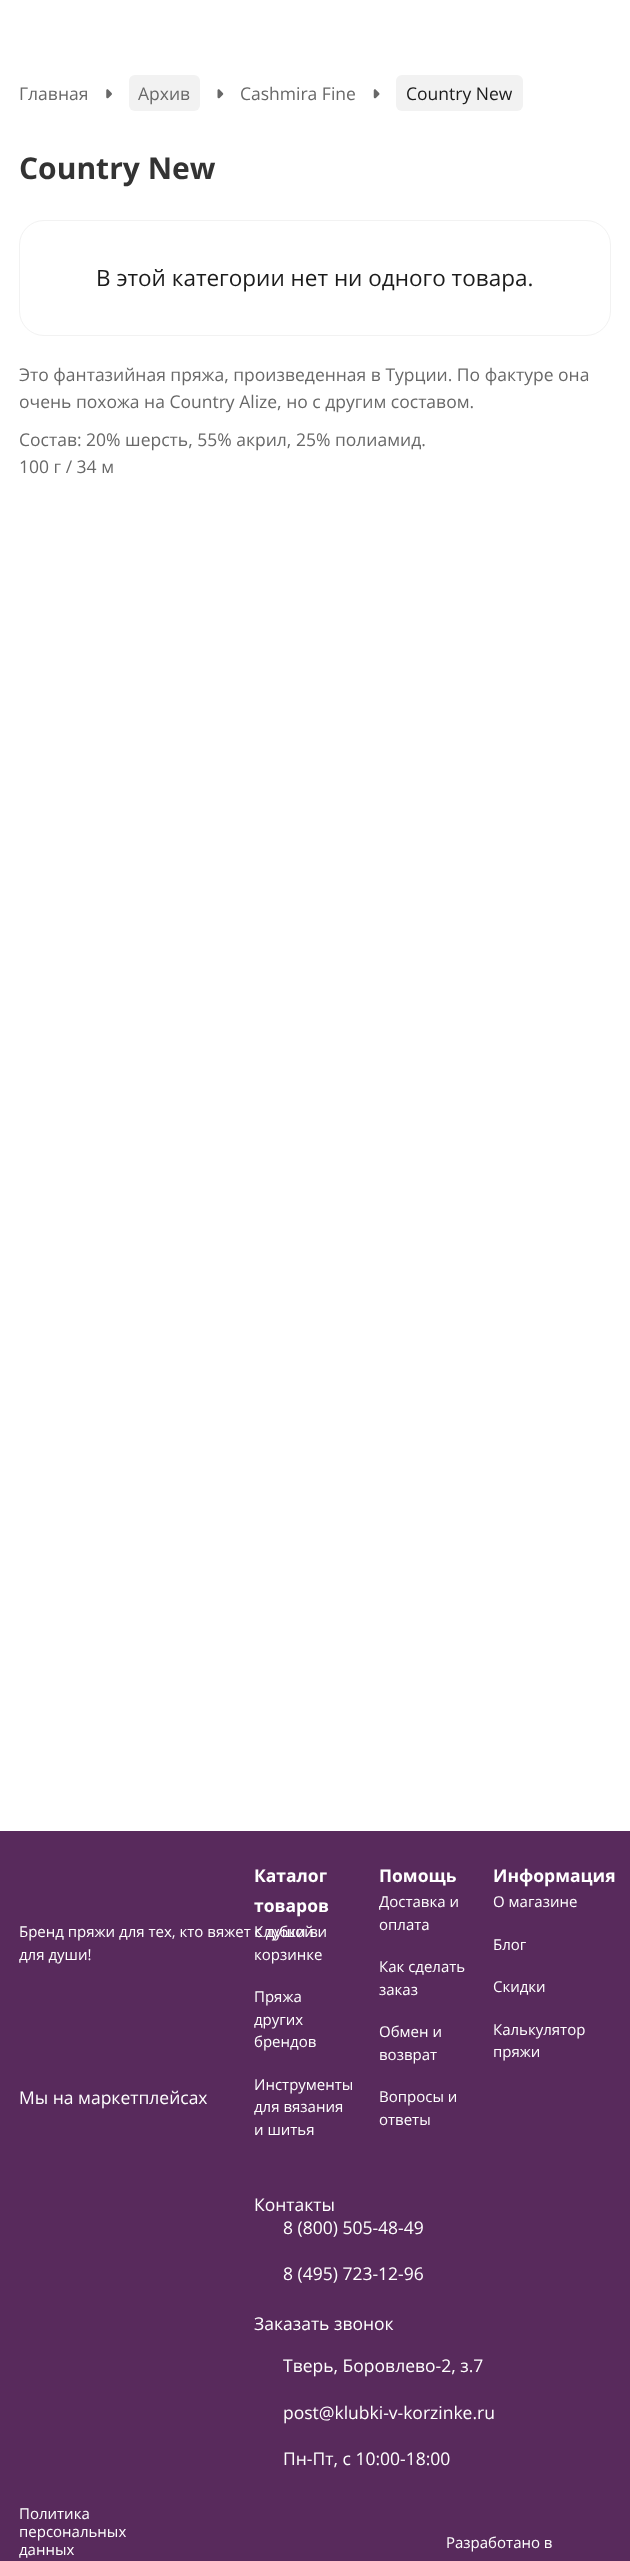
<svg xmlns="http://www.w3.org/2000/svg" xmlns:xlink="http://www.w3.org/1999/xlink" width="630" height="2561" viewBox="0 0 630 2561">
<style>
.cls-1{font:17.5px Open Sans;fill:#686868}
.cls-2{font:17.5px Open Sans;fill:#1b1b1b}
.cls-3{font:bold 30px Open Sans;fill:#333333}
.cls-4{font:22.5px Open Sans;fill:#1b1b1b}
.cls-5{font:15px Open Sans;fill:#ffffff}
.cls-6{font:17.5px Open Sans;fill:#ffffff}
.cls-7{font:bold 17.5px Open Sans;fill:#ffffff}
</style>
<rect width="100%" height="100%" fill="#ffffff"/>
<image xlink:href="image0.png" x="106" y="89" width="6" height="10"/>
<rect fill="#f2f2f2" x="129" y="75" width="71" height="36" rx="6"/>
<image xlink:href="image1.png" x="217" y="89" width="7" height="10"/>
<image xlink:href="image2.png" x="373" y="89" width="7" height="10"/>
<rect fill="#f2f2f2" x="396" y="75" width="127" height="36" rx="6"/>
<rect fill="none" stroke="#f2f2f2" x="19.5" y="220.5" width="591" height="115" rx="24.5"/>
<rect fill="#582a5c" x="0" y="1831" width="630" height="730"/>
<text class="cls-1" x="19" y="100">Главная</text>
<text class="cls-1" x="138" y="100">Архив</text>
<text class="cls-1" x="240" y="100">Cashmira Fine</text>
<text class="cls-2" x="406" y="100">Country New</text>
<text class="cls-3" x="19" y="179">Country New</text>
<text class="cls-4" x="96" y="286">В этой категории нет ни одного товара.</text>
<text class="cls-1"><tspan x="19" y="381">Это фантазийная пряжа, произведенная в Турции. По фактуре она</tspan><tspan x="19" y="408">очень похожа на Country Alize, но с другим составом.</tspan></text>
<text class="cls-1"><tspan x="19" y="446">Состав: 20% шерсть, 55% акрил, 25% полиамид.</tspan><tspan x="19" y="473">100 г / 34 м</tspan></text>
<text class="cls-5"><tspan x="19" y="1937">Бренд пряжи для тех, кто вяжет с душой и</tspan><tspan x="19" y="1960">для души!</tspan></text>
<text class="cls-6" x="19" y="2104">Мы на маркетплейсах</text>
<text class="cls-7"><tspan x="254" y="1882">Каталог</tspan><tspan x="254" y="1912">товаров</tspan></text>
<text class="cls-5"><tspan x="254" y="1937">Клубки в</tspan><tspan x="254" y="1960">корзинке</tspan></text>
<text class="cls-5"><tspan x="254" y="2002">Пряжа</tspan><tspan x="254" y="2025">других</tspan><tspan x="254" y="2047">брендов</tspan></text>
<text class="cls-5"><tspan x="254" y="2090">Инструменты</tspan><tspan x="254" y="2112">для вязания</tspan><tspan x="254" y="2135">и шитья</tspan></text>
<text class="cls-7" x="379" y="1882">Помощь</text>
<text class="cls-5"><tspan x="379" y="1907">Доставка и</tspan><tspan x="379" y="1930">оплата</tspan></text>
<text class="cls-5"><tspan x="379" y="1972">Как сделать</tspan><tspan x="379" y="1995">заказ</tspan></text>
<text class="cls-5"><tspan x="379" y="2037">Обмен и</tspan><tspan x="379" y="2060">возврат</tspan></text>
<text class="cls-5"><tspan x="379" y="2102">Вопросы и</tspan><tspan x="379" y="2125">ответы</tspan></text>
<text class="cls-7" x="493" y="1882">Информация</text>
<text class="cls-5" x="493" y="1907">О магазине</text>
<text class="cls-5" x="493" y="1950">Блог</text>
<text class="cls-5" x="493" y="1992">Скидки</text>
<text class="cls-5"><tspan x="493" y="2035">Калькулятор</tspan><tspan x="493" y="2057">пряжи</tspan></text>
<text class="cls-6" x="254" y="2211">Контакты</text>
<text class="cls-6" x="283" y="2234">8 (800) 505-48-49</text>
<text class="cls-6" x="283" y="2280">8 (495) 723-12-96</text>
<text class="cls-6" x="254" y="2330">Заказать звонок</text>
<text class="cls-6" x="283" y="2372">Тверь, Боровлево-2, з.7</text>
<text class="cls-6" x="283" y="2419">post@klubki-v-korzinke.ru</text>
<text class="cls-6" x="283" y="2465">Пн-Пт, с 10:00-18:00</text>
<text class="cls-5"><tspan x="19" y="2519">Политика</tspan><tspan x="19" y="2537">персональных</tspan><tspan x="19" y="2555">данных</tspan></text>
<text class="cls-5" x="446" y="2548">Разработано в</text>
</svg>
